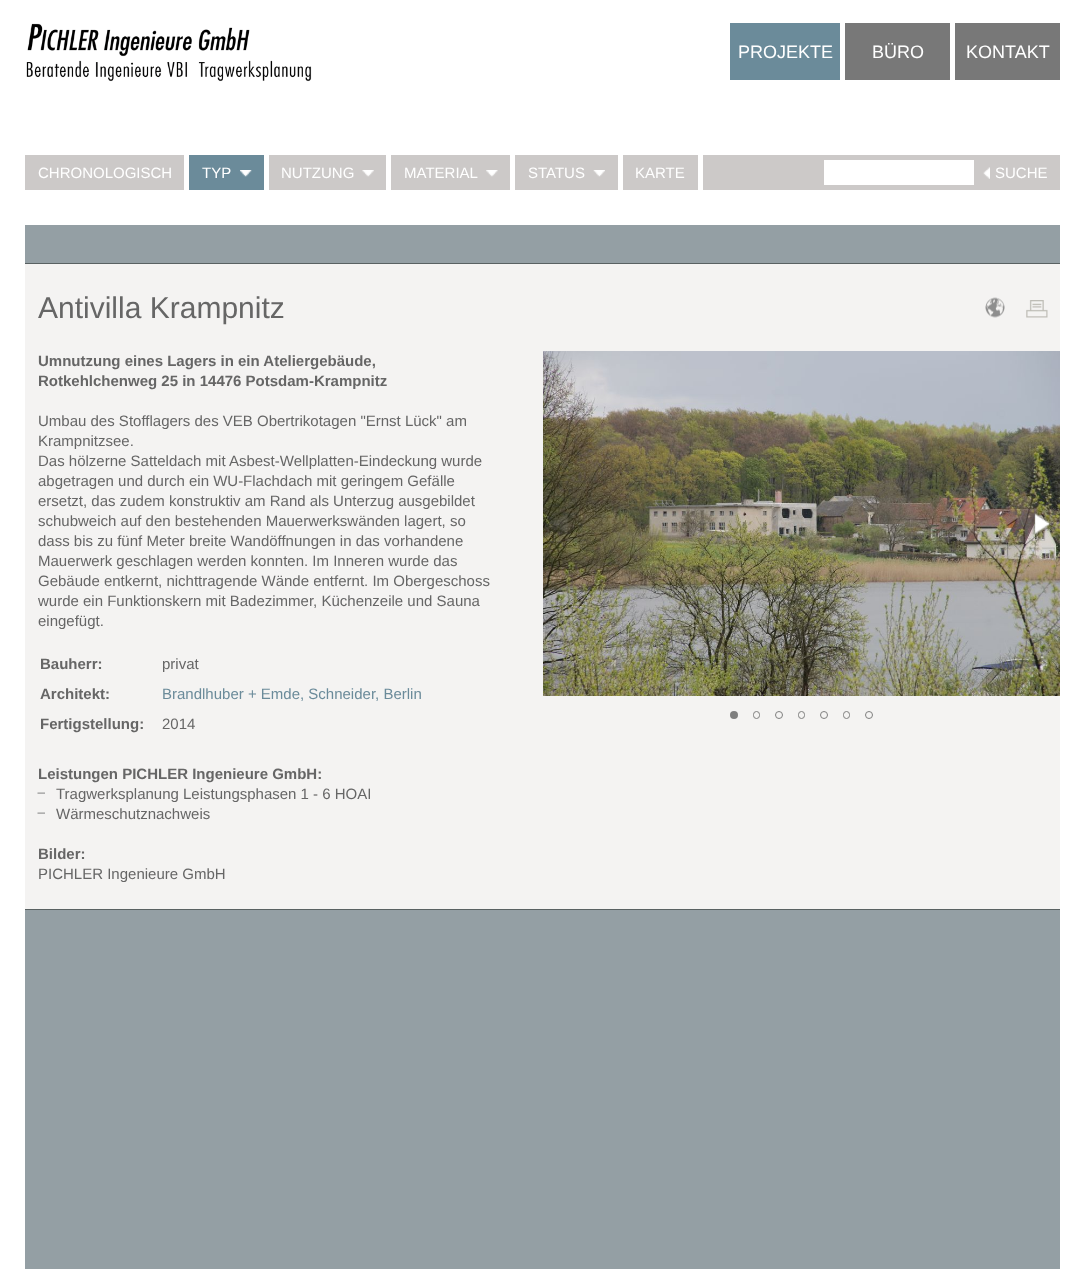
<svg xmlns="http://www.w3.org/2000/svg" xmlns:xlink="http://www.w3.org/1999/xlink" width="1084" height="1269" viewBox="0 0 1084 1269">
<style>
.cls-1{font:18px Liberation Sans;fill:#ffffff}
.cls-2{font:15px Liberation Sans;fill:#ffffff}
.cls-3{font:30px Liberation Sans;fill:#666666}
.cls-4{font:bold 15px Liberation Sans;fill:#666666}
.cls-5{font:15px Liberation Sans;fill:#666666}
.cls-6{font:15px Liberation Sans;fill:#6b8b9a}
</style>
<rect width="100%" height="100%" fill="#ffffff"/>
<image xlink:href="image0.png" x="26" y="23" width="286" height="59"/>
<rect fill="#787878" x="845" y="23" width="105" height="57"/>
<rect fill="#6b8b9a" x="730" y="23" width="110" height="57"/>
<rect fill="#ccc9c8" x="25" y="155" width="1035" height="35"/>
<rect fill="#ffffff" x="184" y="155" width="5" height="35"/>
<rect fill="#ffffff" x="264" y="155" width="5" height="35"/>
<rect fill="#6b8b9a" x="189" y="155" width="75" height="35"/>
<image xlink:href="image1.png" x="240" y="170" width="12" height="7"/>
<rect fill="#ffffff" x="386" y="155" width="5" height="35"/>
<image xlink:href="image2.png" x="362" y="170" width="12" height="7"/>
<rect fill="#ffffff" x="510" y="155" width="5" height="35"/>
<image xlink:href="image3.png" x="486" y="170" width="12" height="7"/>
<rect fill="#ffffff" x="618" y="155" width="5" height="35"/>
<image xlink:href="image4.png" x="593" y="170" width="12" height="7"/>
<rect fill="#ffffff" x="698" y="155" width="5" height="35"/>
<rect fill="#ffffff" x="824" y="160" width="150" height="25"/>
<image xlink:href="image5.png" x="983" y="167" width="7" height="12"/>
<rect fill="#787878" x="955" y="23" width="105" height="57"/>
<rect fill="#949fa4" x="25" y="225" width="1035" height="1044"/>
<rect fill="#f4f3f2" x="25" y="264" width="1035" height="645"/>
<rect fill="#596162" x="25" y="263" width="1035" height="1"/>
<rect fill="#596162" x="25" y="909" width="1035" height="1"/>
<image xlink:href="image6.png" x="985" y="297" width="20" height="21"/>
<image xlink:href="image7.png" x="1026" y="300" width="22" height="18"/>
<image xlink:href="image8.png" x="37" y="792" width="8" height="2"/>
<image xlink:href="image8.png" x="37" y="812" width="8" height="2"/>
<image xlink:href="image9.png" x="543" y="351" width="517" height="345"/>
<image xlink:href="image10.png" x="553" y="514" width="15" height="20"/>
<image xlink:href="image11.png" x="1030" y="511" width="23" height="26"/>
<circle fill="#7f7f7f" cx="734" cy="715" r="4"/>
<rect fill="none" stroke="#7f7f7f" x="753.5" y="711.5" width="6" height="7" rx="3"/>
<circle fill="none" stroke="#7f7f7f" cx="779" cy="715" r="3.5"/>
<rect fill="none" stroke="#7f7f7f" x="798.5" y="711.5" width="6" height="7" rx="3"/>
<circle fill="none" stroke="#7f7f7f" cx="824" cy="715" r="3.5"/>
<rect fill="none" stroke="#7f7f7f" x="843.5" y="711.5" width="6" height="7" rx="3"/>
<circle fill="none" stroke="#7f7f7f" cx="869" cy="715" r="3.5"/>
<text class="cls-1" x="872" y="58">BÜRO</text>
<text class="cls-1" x="738" y="58">PROJEKTE</text>
<text class="cls-2" x="38" y="178">CHRONOLOGISCH</text>
<text class="cls-2" x="202" y="178">TYP</text>
<text class="cls-2" x="281" y="178">NUTZUNG</text>
<text class="cls-2" x="404" y="178">MATERIAL</text>
<text class="cls-2" x="528" y="178">STATUS</text>
<text class="cls-2" x="635" y="178">KARTE</text>
<text class="cls-2" x="995" y="178">SUCHE</text>
<text class="cls-1" x="966" y="58">KONTAKT</text>
<text class="cls-3" x="38" y="318">Antivilla Krampnitz</text>
<text class="cls-4"><tspan x="38" y="366">Umnutzung eines Lagers in ein Ateliergebäude,</tspan><tspan x="38" y="386">Rotkehlchenweg 25 in 14476 Potsdam-Krampnitz</tspan></text>
<text class="cls-5"><tspan x="38" y="426">Umbau des Stofflagers des VEB Obertrikotagen "Ernst Lück" am</tspan><tspan x="38" y="446">Krampnitzsee.</tspan><tspan x="38" y="466">Das hölzerne Satteldach mit Asbest-Wellplatten-Eindeckung wurde</tspan><tspan x="38" y="486">abgetragen und durch ein WU-Flachdach mit geringem Gefälle</tspan><tspan x="38" y="506">ersetzt, das zudem konstruktiv am Rand als Unterzug ausgebildet</tspan><tspan x="38" y="526">schubweich auf den bestehenden Mauerwerkswänden lagert, so</tspan><tspan x="38" y="546">dass bis zu fünf Meter breite Wandöffnungen in das vorhandene</tspan><tspan x="38" y="566">Mauerwerk geschlagen werden konnten. Im Inneren wurde das</tspan><tspan x="38" y="586">Gebäude entkernt, nichttragende Wände entfernt. Im Obergeschoss</tspan><tspan x="38" y="606">wurde ein Funktionskern mit Badezimmer, Küchenzeile und Sauna</tspan><tspan x="38" y="626">eingefügt.</tspan></text>
<text class="cls-4" x="40" y="669">Bauherr:</text>
<text class="cls-5" x="162" y="669">privat</text>
<text class="cls-4" x="40" y="699">Architekt:</text>
<text class="cls-6" x="162" y="699">Brandlhuber + Emde, Schneider, Berlin</text>
<text class="cls-4" x="40" y="729">Fertigstellung:</text>
<text class="cls-5" x="162" y="729">2014</text>
<text class="cls-4" x="38" y="779">Leistungen PICHLER Ingenieure GmbH:</text>
<text class="cls-5"><tspan x="56" y="799">Tragwerksplanung Leistungsphasen 1 - 6 HOAI</tspan><tspan x="56" y="819">Wärmeschutznachweis</tspan></text>
<text class="cls-4" x="38" y="859">Bilder:</text>
<text class="cls-5" x="38" y="879">PICHLER Ingenieure GmbH</text>
</svg>
